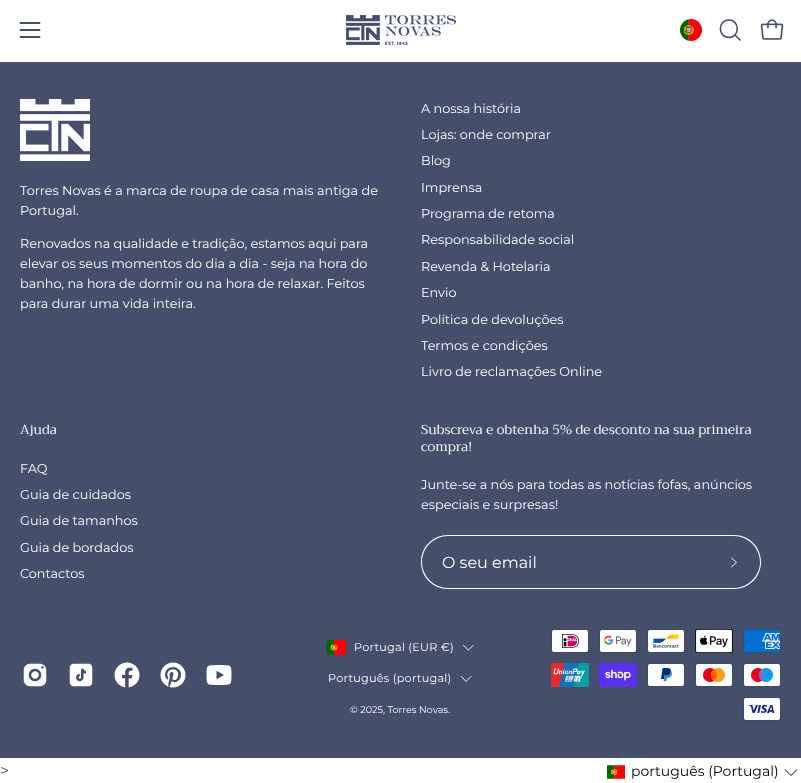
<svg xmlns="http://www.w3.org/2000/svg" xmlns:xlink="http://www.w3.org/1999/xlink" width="801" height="783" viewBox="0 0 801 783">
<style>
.cls-1{font:12.8px Montserrat;fill:#ffffff}
.cls-2{font:13.2px Trirong;fill:#ffffff}
.cls-3{font:16px Montserrat;fill:#ffffff}
.cls-4{font:11.25px Montserrat;letter-spacing:0.25px;fill:#ffffff}
.cls-5{font:9.6px Montserrat;fill:#ffffff}
.cls-6{font:16px Montserrat;fill:#454e6b}
.cls-7{font:14px Montserrat;fill:#000000}
</style>
<rect width="100%" height="100%" fill="#ffffff"/>
<path fill="none" stroke="#454e6b" stroke-width="1.8" stroke-linecap="round" stroke-linejoin="round" d="M20.5 30H39.5M20.5 23H39.5M20.5 37H39.5"/>
<image xlink:href="image0.png" x="346" y="15" width="110" height="30"/>
<image xlink:href="image1.png" x="680" y="19" width="22" height="22"/>
<path fill="none" stroke="#454e6b" stroke-width="1.6" stroke-linecap="round" stroke-linejoin="round" d="M729 37.5C740 37.5 740 20 729 20C717.5 20 717.5 37.5 729 37.5ZM735 35L740 40"/>
<image xlink:href="image2.png" x="760" y="19" width="24" height="21"/>
<rect fill="#454e6b" x="0" y="62" width="801" height="696"/>
<image xlink:href="image3.png" x="20" y="99" width="70" height="62"/>
<path fill="#ffffff" fill-rule="evenodd" d="M448 535H707V589H448C433 589 421 577 421 562C421 547 433 535 448 535ZM448 536H707V588H448C434 588 422 576 422 562C422 548 434 536 448 536Z"/>
<path fill="#ffffff" fill-rule="evenodd" d="M707 535H734C749 535 761 547 761 562C761 577 749 589 734 589H707ZM707 536H734C748 536 760 548 760 562C760 576 748 588 734 588H707Z"/>
<path fill="none" stroke="#ffffff" stroke-width="0.9" stroke-linecap="round" stroke-linejoin="round" d="M731.5 558L736.5 562.5L731.5 567"/>
<image xlink:href="image4.png" x="23" y="663" width="24" height="24"/>
<image xlink:href="image5.png" x="69" y="663" width="24" height="24"/>
<image xlink:href="image6.png" x="114" y="662" width="26" height="26"/>
<image xlink:href="image7.png" x="160" y="662" width="26" height="26"/>
<image xlink:href="image8.png" x="206" y="665" width="26" height="20"/>
<image xlink:href="image9.png" x="326" y="640" width="20" height="15"/>
<path fill="none" stroke="#ffffff" stroke-width="0.9" stroke-linecap="round" stroke-linejoin="round" d="M473 645.5L468.5 650L463.5 645.5"/>
<path fill="none" stroke="#ffffff" stroke-width="0.9" stroke-linecap="round" stroke-linejoin="round" d="M471 676.5L466 681.5L461.5 676.5"/>
<image xlink:href="image10.png" x="551" y="629" width="38" height="24"/>
<image xlink:href="image11.png" x="599" y="629" width="38" height="24"/>
<image xlink:href="image12.png" x="647" y="629" width="38" height="24"/>
<image xlink:href="image13.png" x="695" y="629" width="38" height="24"/>
<image xlink:href="image14.png" x="743" y="629" width="38" height="24"/>
<image xlink:href="image15.png" x="551" y="663" width="38" height="24"/>
<image xlink:href="image16.png" x="599" y="663" width="38" height="24"/>
<image xlink:href="image17.png" x="647" y="663" width="38" height="24"/>
<image xlink:href="image18.png" x="695" y="663" width="38" height="24"/>
<image xlink:href="image19.png" x="743" y="663" width="38" height="24"/>
<image xlink:href="image20.png" x="743" y="697" width="38" height="24"/>
<image xlink:href="image21.png" x="607" y="765" width="18" height="14"/>
<path fill="none" stroke="#000000" d="M785 769.5L791 775.5L797 769.5"/>
<text class="cls-1"><tspan x="20" y="195">Torres Novas é a marca de roupa de casa mais antiga de</tspan><tspan x="20" y="215">Portugal.</tspan></text>
<text class="cls-1"><tspan x="20" y="248">Renovados na qualidade e tradição, estamos aqui para</tspan><tspan x="20" y="268">elevar os seus momentos do dia a dia - seja na hora do</tspan><tspan x="20" y="288">banho, na hora de dormir ou na hora de relaxar. Feitos</tspan><tspan x="20" y="308">para durar uma vida inteira.</tspan></text>
<text class="cls-1" x="421" y="113">A nossa história</text>
<text class="cls-1" x="421" y="139">Lojas: onde comprar</text>
<text class="cls-1" x="421" y="165">Blog</text>
<text class="cls-1" x="421" y="192">Imprensa</text>
<text class="cls-1" x="421" y="218">Programa de retoma</text>
<text class="cls-1" x="421" y="244">Responsabilidade social</text>
<text class="cls-1" x="421" y="271">Revenda &amp; Hotelaria</text>
<text class="cls-1" x="421" y="297">Envio</text>
<text class="cls-1" x="421" y="324">Política de devoluções</text>
<text class="cls-1" x="421" y="350">Termos e condições</text>
<text class="cls-1" x="421" y="376">Livro de reclamações Online</text>
<text class="cls-2" x="20" y="434">Ajuda</text>
<text class="cls-1" x="20" y="473">FAQ</text>
<text class="cls-1" x="20" y="499">Guia de cuidados</text>
<text class="cls-1" x="20" y="525">Guia de tamanhos</text>
<text class="cls-1" x="20" y="552">Guia de bordados</text>
<text class="cls-1" x="20" y="578">Contactos</text>
<text class="cls-2"><tspan x="421" y="434">Subscreva e obtenha 5% de desconto na sua primeira</tspan><tspan x="421" y="451">compra!</tspan></text>
<text class="cls-1"><tspan x="421" y="489">Junte-se a nós para todas as notícias fofas, anúncios</tspan><tspan x="421" y="509">especiais e surpresas!</tspan></text>
<text class="cls-3" x="442" y="568">O seu email</text>
<text class="cls-4" x="354" y="651">Portugal (EUR €)</text>
<text class="cls-4" x="328" y="682">Português (portugal)</text>
<text class="cls-5" x="350" y="713">© 2025, Torres Novas.</text>
<text class="cls-6" x="0" y="776">&gt;</text>
<text class="cls-7" x="631" y="776">português (Portugal)</text>
</svg>
